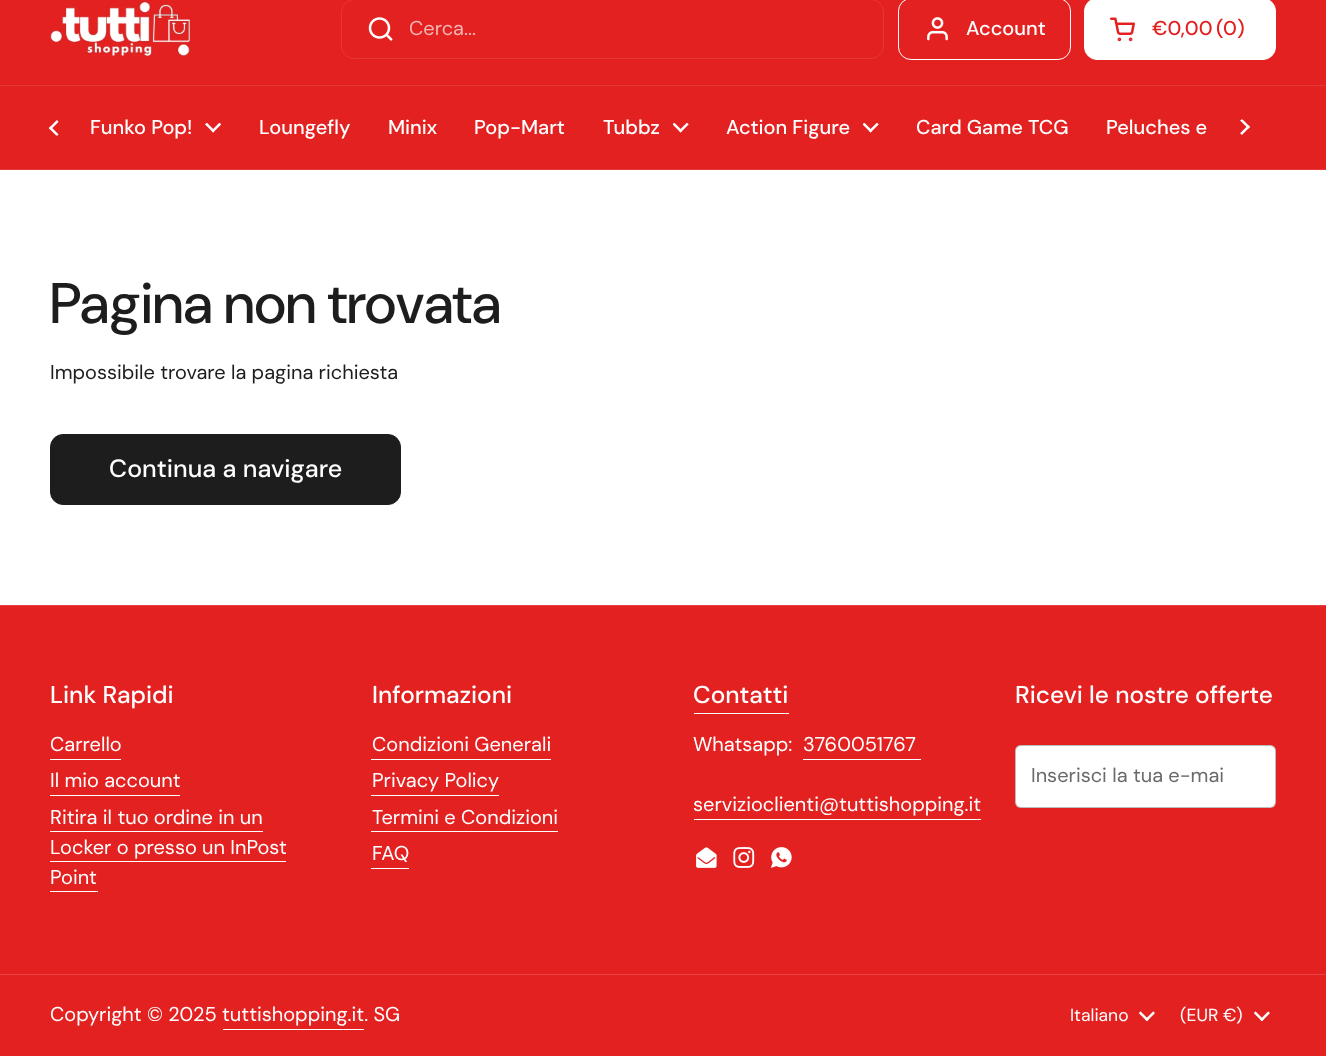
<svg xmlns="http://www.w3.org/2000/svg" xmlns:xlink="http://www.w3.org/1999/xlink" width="1326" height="1056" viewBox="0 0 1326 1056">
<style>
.cls-1{font:20px DM Sans;fill:#f5b4b3}
.cls-2{font:500 20px 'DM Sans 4';fill:#ffffff}
.cls-3{font:500 20px 'DM Sans 4';fill:#e22120}
.cls-4{font:500 57px DM Sans;fill:#1d1d1d}
.cls-5{font:20px DM Sans;fill:#1d1d1d}
.cls-6{font:500 25px 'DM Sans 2';fill:#ffffff}
.cls-7{font:500 24.4px 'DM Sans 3';fill:#ffffff}
.cls-8{font:20px DM Sans;fill:#ffffff}
.cls-9{font:20px DM Sans;fill:#6a6a6a}
.cls-10{font:17.5px 'DM Sans 2';fill:#ffffff}
</style>
<rect width="100%" height="100%" fill="#ffffff"/>
<rect fill="#e22120" x="0" y="0" width="1326" height="169"/>
<rect fill="#e53736" x="0" y="85" width="1326" height="1"/>
<image xlink:href="image0.png" x="50" y="1" width="140" height="56"/>
<rect fill="none" stroke="#e53736" x="341.5" y="-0.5" width="542" height="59" rx="12.5"/>
<image xlink:href="image1.png" x="368" y="17" width="25" height="24"/>
<rect fill="none" stroke="#ffffff" x="898.5" y="-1.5" width="172" height="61" rx="12.5"/>
<image xlink:href="image2.png" x="927" y="17" width="21" height="24"/>
<rect fill="#ffffff" stroke="#ffffff" x="1084.5" y="-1.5" width="191" height="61" rx="12.5"/>
<image xlink:href="image3.png" x="1110" y="17" width="25" height="25"/>
<rect fill="#e53736" x="0" y="169" width="1326" height="1"/>
<image xlink:href="image4.png" x="48" y="120" width="11" height="16"/>
<image xlink:href="image5.png" x="205" y="123" width="16" height="10"/>
<image xlink:href="image6.png" x="673" y="123" width="16" height="10"/>
<image xlink:href="image6.png" x="863" y="123" width="16" height="10"/>
<image xlink:href="image7.png" x="1240" y="119" width="10" height="16"/>
<rect fill="#1d1d1d" stroke="#1d1d1d" x="50.5" y="434.5" width="350" height="70" rx="12.5"/>
<rect fill="#e22120" x="0" y="606" width="1326" height="450"/>
<rect fill="#e64241" x="0" y="605" width="1326" height="1"/>
<rect fill="#ffffff" x="50" y="759" width="71" height="1"/>
<rect fill="#ffffff" x="50" y="795" width="130" height="1"/>
<rect fill="#ffffff" x="50" y="831" width="213" height="1"/>
<rect fill="#ffffff" x="50" y="861" width="236" height="1"/>
<rect fill="#ffffff" x="50" y="891" width="48" height="1"/>
<rect fill="#ffffff" x="371" y="759" width="180" height="1"/>
<rect fill="#ffffff" x="371" y="795" width="128" height="1"/>
<rect fill="#ffffff" x="371" y="831" width="187" height="1"/>
<rect fill="#ffffff" x="371" y="868" width="38" height="1"/>
<rect fill="#ffffff" x="694" y="713" width="95" height="1"/>
<rect fill="#ffffff" x="803" y="759" width="118" height="1"/>
<rect fill="#ffffff" x="694" y="819" width="287" height="1"/>
<image xlink:href="image8.png" x="696" y="847" width="21" height="21"/>
<image xlink:href="image9.png" x="733" y="847" width="22" height="21"/>
<image xlink:href="image10.png" x="770" y="847" width="22" height="21"/>
<rect fill="#ffffff" x="1015" y="745" width="261" height="63" rx="6"/>
<rect fill="none" stroke="#1d1d1d" stroke-opacity="0.3" x="1015.5" y="745.5" width="260" height="62" rx="5.5"/>
<rect fill="#e64241" x="0" y="974" width="1326" height="1"/>
<rect fill="#ffffff" x="223" y="1029" width="141" height="1"/>
<image xlink:href="image11.png" x="1139" y="1011" width="16" height="10"/>
<image xlink:href="image11.png" x="1254" y="1011" width="16" height="10"/>
<text class="cls-1" x="409" y="35">Cerca...</text>
<text class="cls-2" x="966" y="35">Account</text>
<text class="cls-3" x="1152" y="35">€0,00</text>
<text class="cls-3" x="1216" y="35">(0</text>
<text class="cls-3" x="1237" y="35">)</text>
<text class="cls-2" x="90" y="134">Funko Pop!</text>
<text class="cls-2" x="259" y="134">Loungefly</text>
<text class="cls-2" x="388" y="134">Minix</text>
<text class="cls-2" x="474" y="134">Pop-Mart</text>
<text class="cls-2" x="603" y="134">Tubbz</text>
<text class="cls-2" x="726" y="134">Action Figure</text>
<text class="cls-2" x="916" y="134">Card Game TCG</text>
<text class="cls-2" x="1106" y="134">Peluches e</text>
<text class="cls-4" x="50" y="323">Pagina non trovata</text>
<text class="cls-5" x="50" y="379">Impossibile trovare la pagina richiesta</text>
<text class="cls-6" x="109" y="477">Continua a navigare</text>
<text class="cls-7" x="50" y="703">Link Rapidi</text>
<text class="cls-8"><tspan x="50" y="751">Carrello</tspan><tspan x="50" y="787">Il mio account</tspan><tspan x="50" y="824">Ritira il tuo ordine in un</tspan><tspan x="50" y="854">Locker o presso un InPost</tspan><tspan x="50" y="884">Point</tspan></text>
<text class="cls-7" x="372" y="703">Informazioni</text>
<text class="cls-8"><tspan x="372" y="751">Condizioni Generali</tspan><tspan x="372" y="787">Privacy Policy</tspan><tspan x="372" y="824">Termini e Condizioni</tspan><tspan x="372" y="860">FAQ</tspan></text>
<text class="cls-7" x="693" y="703">Contatti</text>
<text class="cls-8" x="693" y="751">Whatsapp:</text>
<text class="cls-8" x="803" y="751">3760051767</text>
<text class="cls-8" x="693" y="811">servizioclienti@tuttishopping.it</text>
<text class="cls-7" x="1015" y="703">Ricevi le nostre offerte</text>
<text class="cls-9" x="1031" y="782">Inserisci la tua e-mai</text>
<text class="cls-8" x="50" y="1021">Copyright © 2025 tuttishopping.it. SG</text>
<text class="cls-10" x="1070" y="1021">Italiano</text>
<text class="cls-10" x="1180" y="1021">(EUR €)</text>
</svg>
